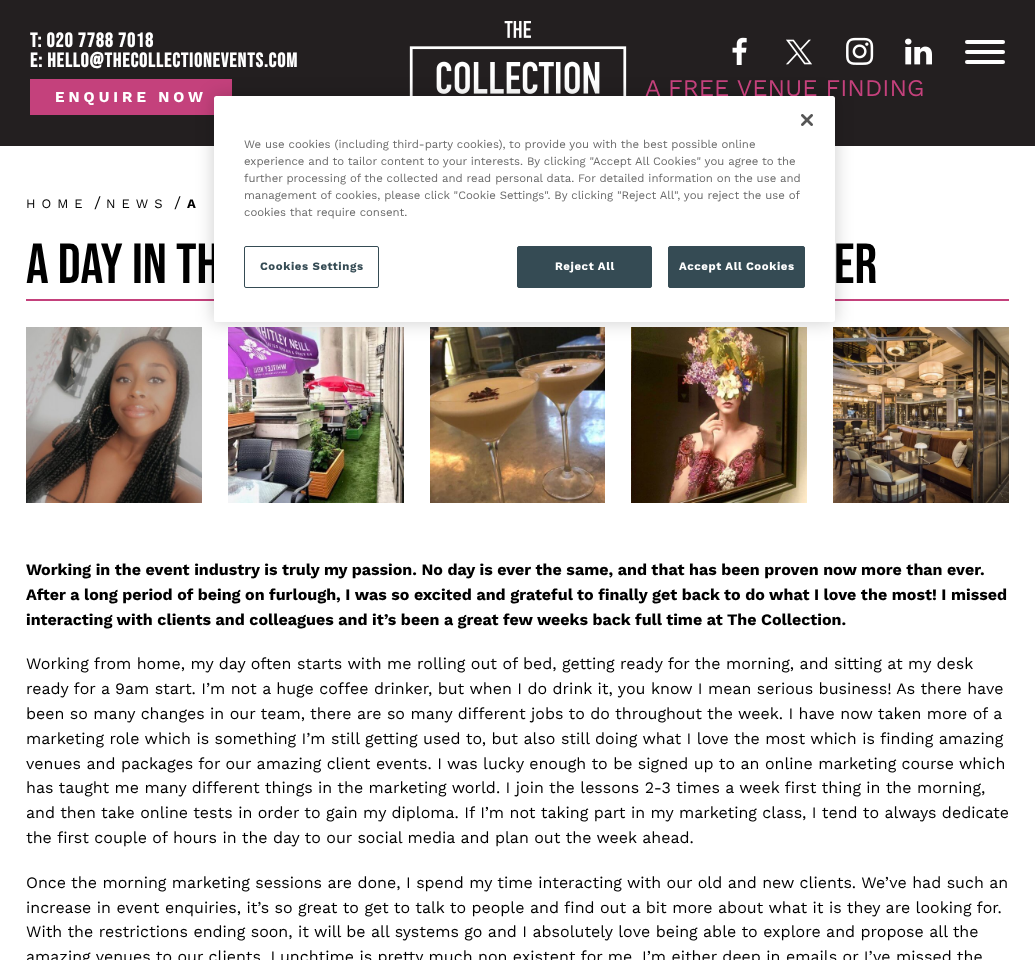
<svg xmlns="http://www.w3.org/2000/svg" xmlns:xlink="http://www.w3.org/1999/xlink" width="1035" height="960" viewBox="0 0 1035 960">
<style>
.cls-1{font:bold 20px Bebas Neue;letter-spacing:1px;fill:#ffffff}
.cls-2{font:bold 15px Work Sans;letter-spacing:4px;fill:#ffffff}
.cls-3{font:24px Work Sans;fill:#c4417c}
.cls-4{font:13px Work Sans;letter-spacing:6px;fill:#000000}
.cls-5{font:16px Work Sans;fill:#000000}
.cls-6{font:bold 13px Work Sans;letter-spacing:6px;fill:#000000}
.cls-7{font:56.5px Bebas Neue;fill:#000000}
.cls-8{font:bold 11.4px Work Sans;letter-spacing:0.6px;fill:#ffffff}
.cls-9{font:bold 11.4px Work Sans;letter-spacing:0.6px;fill:#354b54}
.cls-10{font:11.4px Work Sans;fill:#696969}
.cls-11{font:bold 16px Work Sans;fill:#000000}
</style>
<rect width="100%" height="100%" fill="#ffffff"/>
<rect fill="#231f20" x="0" y="0" width="1035" height="146"/>
<image xlink:href="image0.png" x="409" y="21" width="218" height="75"/>
<rect fill="#c4417c" x="30" y="79" width="202" height="36"/>
<image xlink:href="image1.png" x="732" y="37" width="15" height="28"/>
<image xlink:href="image2.png" x="786" y="39" width="26" height="26"/>
<image xlink:href="image3.png" x="846" y="37" width="28" height="28"/>
<image xlink:href="image4.png" x="905" y="38" width="27" height="27"/>
<rect fill="#ffffff" x="965" y="50" width="40" height="4" rx="2"/>
<rect fill="#ffffff" x="965" y="40" width="40" height="4" rx="2"/>
<rect fill="#ffffff" x="965" y="60" width="40" height="4" rx="2"/>
<rect fill="#c4417c" x="26" y="299" width="983" height="2"/>
<image xlink:href="image6.png" x="26" y="327" width="176" height="176"/>
<image xlink:href="image7.png" x="228" y="327" width="176" height="176"/>
<image xlink:href="image8.png" x="430" y="327" width="175" height="176"/>
<image xlink:href="image9.png" x="631" y="327" width="176" height="176"/>
<image xlink:href="image10.png" x="833" y="327" width="176" height="176"/>
<rect fill="#000000" fill-opacity="0.2" filter="blur(9px)" x="214" y="96" width="621" height="226" rx="2.5"/>
<text class="cls-1"><tspan x="30" y="47">T: 020 7788 7018</tspan><tspan x="30" y="67">E: HELLO@THECOLLECTIONEVENTS.COM</tspan></text>
<text class="cls-2" x="55" y="102">ENQUIRE NOW</text>
<text class="cls-3" x="645" y="96">A FREE VENUE FINDING</text>
<text class="cls-4" x="26" y="208">HOME</text>
<text class="cls-5" x="94" y="208">/</text>
<text class="cls-4" x="106" y="208">NEWS</text>
<text class="cls-5" x="174" y="208">/</text>
<text class="cls-6" x="187" y="208">A</text>
<text class="cls-7" x="26" y="283">A DAY IN TH</text>
<rect fill="#ffffff" x="214" y="96" width="621" height="226" rx="2.5"/>
<image xlink:href="image5.png" x="801" y="114" width="12" height="12"/>
<rect fill="#354b54" stroke="#354b54" x="668.5" y="246.5" width="136" height="41" rx="1.5"/>
<text class="cls-8" x="679" y="270">Accept All Cookies</text>
<rect fill="#354b54" stroke="#354b54" x="517.5" y="246.5" width="134" height="41" rx="1.5"/>
<text class="cls-8" x="555" y="270">Reject All</text>
<rect fill="none" stroke="#354b54" x="244.5" y="246.5" width="134" height="41" rx="1.5"/>
<text class="cls-9" x="260" y="270">Cookies Settings</text>
<text class="cls-10" x="244" y="216">cookies that require consent.</text>
<text class="cls-10" x="244" y="199">management of cookies, please click "Cookie Settings". By clicking "Reject All", you reject the use of</text>
<text class="cls-10" x="244" y="182">further processing of the collected and read personal data. For detailed information on the use and</text>
<text class="cls-10" x="244" y="165">experience and to tailor content to your interests. By clicking "Accept All Cookies" you agree to the</text>
<text class="cls-10" x="244" y="148">We use cookies (including third-party cookies), to provide you with the best possible online</text>
<text class="cls-7" x="834" y="283">ER</text>
<text class="cls-11"><tspan x="26" y="575">Working in the event industry is truly my passion. No day is ever the same, and that has been proven now more than ever.</tspan><tspan x="26" y="600">After a long period of being on furlough, I was so excited and grateful to finally get back to do what I love the most! I missed</tspan><tspan x="26" y="625">interacting with clients and colleagues and it’s been a great few weeks back full time at The Collection.</tspan></text>
<text class="cls-5"><tspan x="26" y="669">Working from home, my day often starts with me rolling out of bed, getting ready for the morning, and sitting at my desk</tspan><tspan x="26" y="694">ready for a 9am start. I’m not a huge coffee drinker, but when I do drink it, you know I mean serious business! As there have</tspan><tspan x="26" y="719">been so many changes in our team, there are so many different jobs to do throughout the week. I have now taken more of a</tspan><tspan x="26" y="744">marketing role which is something I’m still getting used to, but also still doing what I love the most which is finding amazing</tspan><tspan x="26" y="769">venues and packages for our amazing client events. I was lucky enough to be signed up to an online marketing course which</tspan><tspan x="26" y="793">has taught me many different things in the marketing world. I join the lessons 2-3 times a week first thing in the morning,</tspan><tspan x="26" y="818">and then take online tests in order to gain my diploma. If I’m not taking part in my marketing class, I tend to always dedicate</tspan><tspan x="26" y="843">the first couple of hours in the day to our social media and plan out the week ahead.</tspan></text>
<text class="cls-5"><tspan x="26" y="888">Once the morning marketing sessions are done, I spend my time interacting with our old and new clients. We’ve had such an</tspan><tspan x="26" y="913">increase in event enquiries, it’s so great to get to talk to people and find out a bit more about what it is they are looking for.</tspan><tspan x="26" y="937">With the restrictions ending soon, it will be all systems go and I absolutely love being able to explore and propose all the</tspan><tspan x="26" y="962">amazing venues to our clients. Lunchtime is pretty much non existent for me. I’m either deep in emails or I’ve missed the</tspan></text>
</svg>
